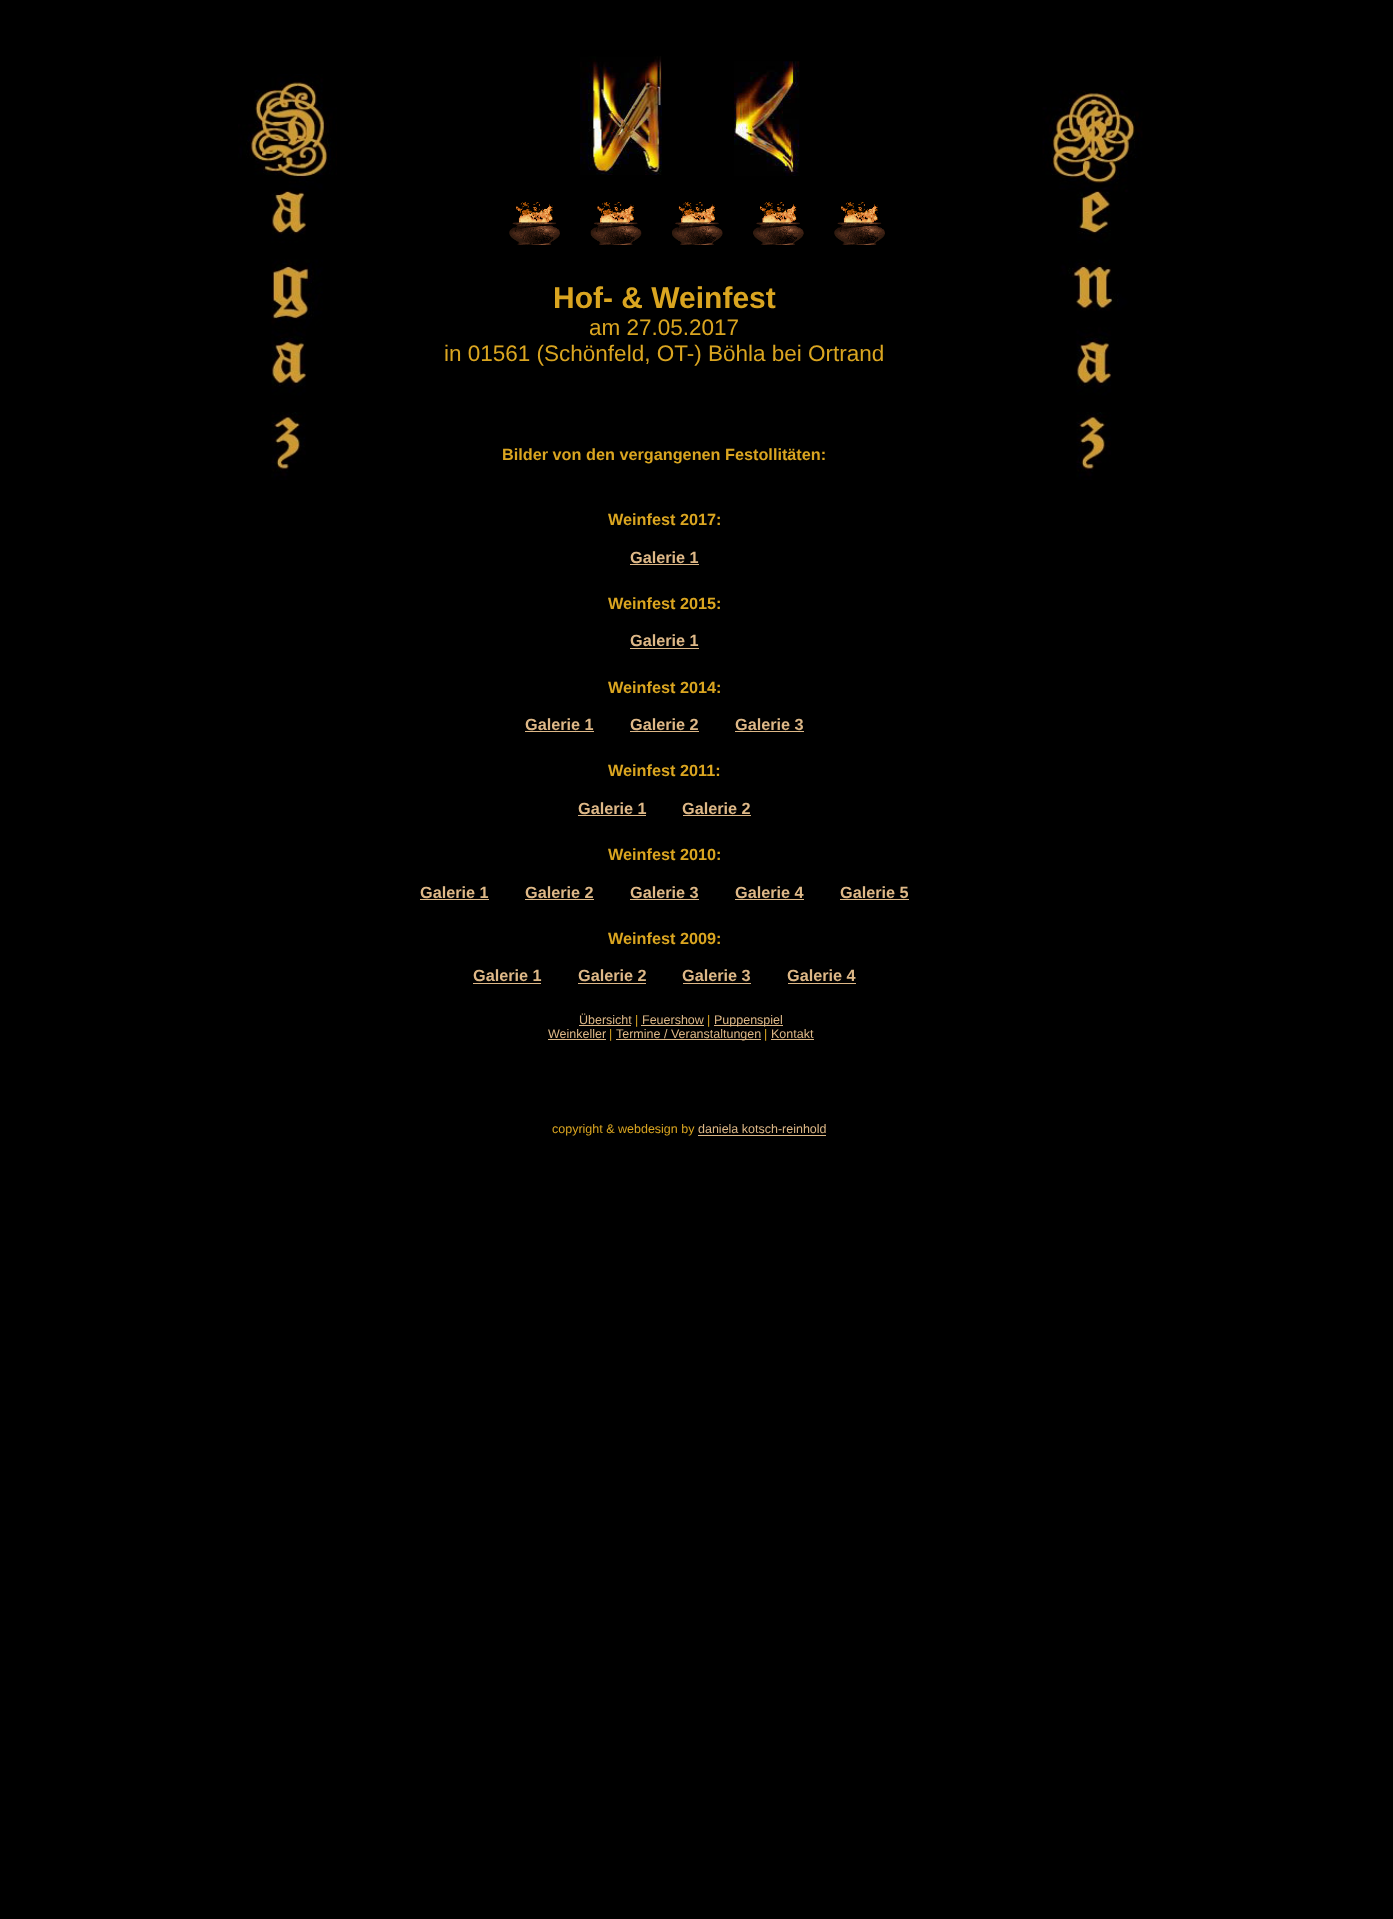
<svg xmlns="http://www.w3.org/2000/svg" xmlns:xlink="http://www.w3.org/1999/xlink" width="1393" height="1919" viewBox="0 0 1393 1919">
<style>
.cls-1{font:bold 30px Liberation Sans;fill:#daa520}
.cls-2{font:22.5px Liberation Sans;fill:#daa520}
.cls-3{font:bold 16.25px Liberation Sans;fill:#daa520}
.cls-4{font:bold 16.25px Liberation Sans;fill:#deb887}
.cls-5{font:12.5px Liberation Sans;fill:#deb887}
.cls-6{font:12.5px Liberation Sans;fill:#daa520}
</style>
<rect width="100%" height="100%" fill="#000000"/>
<image xlink:href="image0.png" x="238" y="74" width="99" height="406"/>
<image xlink:href="image1.png" x="580" y="56" width="82" height="119"/>
<image xlink:href="image2.png" x="734" y="61" width="66" height="115"/>
<image xlink:href="image3.png" x="1042" y="90" width="101" height="390"/>
<image xlink:href="image4.png" x="509" y="202" width="51" height="43"/>
<image xlink:href="image5.png" x="590" y="202" width="52" height="43"/>
<image xlink:href="image6.png" x="672" y="202" width="51" height="43"/>
<image xlink:href="image7.png" x="753" y="202" width="51" height="43"/>
<image xlink:href="image8.png" x="834" y="202" width="51" height="43"/>
<rect fill="#deb887" x="630" y="564" width="69" height="1"/>
<rect fill="#deb887" x="630" y="648" width="69" height="1"/>
<rect fill="#deb887" x="525" y="731" width="69" height="1"/>
<rect fill="#deb887" x="630" y="731" width="69" height="1"/>
<rect fill="#deb887" x="735" y="731" width="69" height="1"/>
<rect fill="#deb887" x="578" y="815" width="68" height="1"/>
<rect fill="#deb887" x="683" y="815" width="68" height="1"/>
<rect fill="#deb887" x="420" y="899" width="69" height="1"/>
<rect fill="#deb887" x="525" y="899" width="69" height="1"/>
<rect fill="#deb887" x="630" y="899" width="69" height="1"/>
<rect fill="#deb887" x="735" y="899" width="69" height="1"/>
<rect fill="#deb887" x="840" y="899" width="69" height="1"/>
<rect fill="#deb887" x="473" y="983" width="68" height="1"/>
<rect fill="#deb887" x="578" y="983" width="68" height="1"/>
<rect fill="#deb887" x="683" y="983" width="68" height="1"/>
<rect fill="#deb887" x="788" y="983" width="68" height="1"/>
<rect fill="#deb887" x="579" y="1025" width="52" height="1"/>
<rect fill="#deb887" x="641" y="1025" width="63" height="1"/>
<rect fill="#deb887" x="714" y="1025" width="69" height="1"/>
<rect fill="#deb887" x="548" y="1039" width="58" height="1"/>
<rect fill="#deb887" x="616" y="1039" width="145" height="1"/>
<rect fill="#deb887" x="771" y="1039" width="43" height="1"/>
<rect fill="#deb887" x="698" y="1135" width="128" height="1"/>
<text class="cls-1" x="553" y="308">Hof- &amp; Weinfest</text>
<text class="cls-2" x="589" y="335">am 27.05.2017</text>
<text class="cls-2" x="444" y="361">in 01561 (Schönfeld, OT-) Böhla bei Ortrand</text>
<text class="cls-3" x="502" y="460">Bilder von den vergangenen Festollitäten:</text>
<text class="cls-3" x="608" y="525">Weinfest 2017:</text>
<text class="cls-4" x="630" y="563">Galerie 1</text>
<text class="cls-3" x="608" y="609">Weinfest 2015:</text>
<text class="cls-4" x="630" y="646">Galerie 1</text>
<text class="cls-3" x="608" y="693">Weinfest 2014:</text>
<text class="cls-4" x="525" y="730">Galerie 1</text>
<text class="cls-4" x="630" y="730">Galerie 2</text>
<text class="cls-4" x="735" y="730">Galerie 3</text>
<text class="cls-3" x="608" y="776">Weinfest 2011:</text>
<text class="cls-4" x="578" y="814">Galerie 1</text>
<text class="cls-4" x="682" y="814">Galerie 2</text>
<text class="cls-3" x="608" y="860">Weinfest 2010:</text>
<text class="cls-4" x="420" y="898">Galerie 1</text>
<text class="cls-4" x="525" y="898">Galerie 2</text>
<text class="cls-4" x="630" y="898">Galerie 3</text>
<text class="cls-4" x="735" y="898">Galerie 4</text>
<text class="cls-4" x="840" y="898">Galerie 5</text>
<text class="cls-3" x="608" y="944">Weinfest 2009:</text>
<text class="cls-4" x="473" y="981">Galerie 1</text>
<text class="cls-4" x="578" y="981">Galerie 2</text>
<text class="cls-4" x="682" y="981">Galerie 3</text>
<text class="cls-4" x="787" y="981">Galerie 4</text>
<text class="cls-5" x="579" y="1024">Übersicht</text>
<text class="cls-6" x="635" y="1024">|</text>
<text class="cls-5" x="642" y="1024">Feuershow</text>
<text class="cls-6" x="707" y="1024">|</text>
<text class="cls-5" x="714" y="1024">Puppenspiel</text>
<text class="cls-5" x="548" y="1038">Weinkeller</text>
<text class="cls-6" x="609" y="1038">|</text>
<text class="cls-5" x="616" y="1038">Termine / Veranstaltungen</text>
<text class="cls-6" x="764" y="1038">|</text>
<text class="cls-5" x="771" y="1038">Kontakt</text>
<text class="cls-6" x="552" y="1133">copyright &amp; webdesign by</text>
<text class="cls-5" x="698" y="1133">daniela kotsch-reinhold</text>
</svg>
